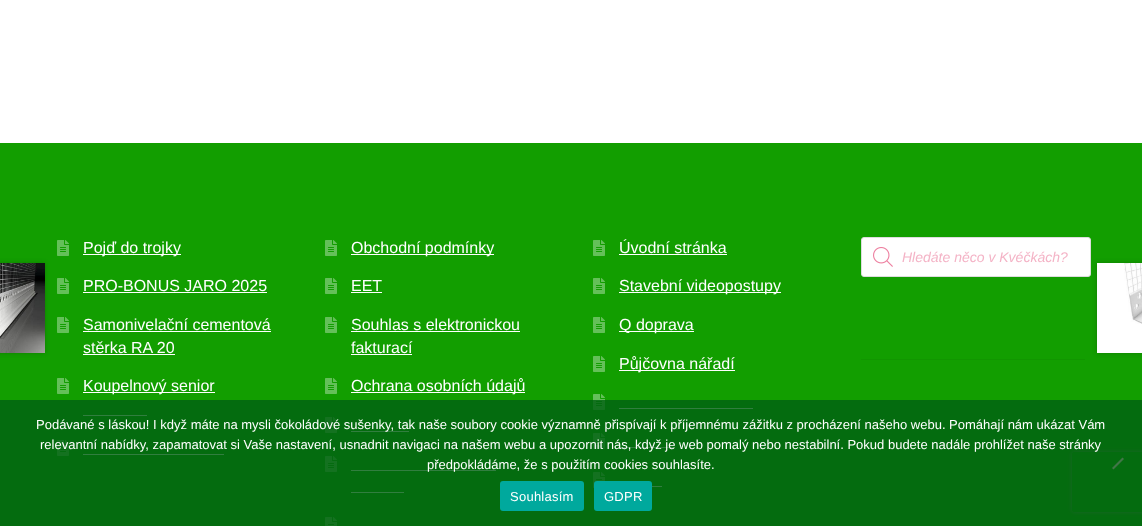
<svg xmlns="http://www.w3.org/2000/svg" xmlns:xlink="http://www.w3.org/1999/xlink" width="1142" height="526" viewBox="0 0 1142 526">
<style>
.cls-1{font:16px Liberation Sans;fill:#ffffff}
.cls-2{font:italic 14px Liberation Sans;fill:#f4b3c6}
.cls-3{font:13px Liberation Sans;fill:#ffffff}
.cls-4{font:13px Liberation Sans;letter-spacing:0.25px;fill:#ffffff}
</style>
<defs>
<clipPath id="clip1"><path d="M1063 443H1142V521H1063ZM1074 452H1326C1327 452 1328 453 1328 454V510C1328 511 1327 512 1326 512H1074C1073 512 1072 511 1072 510V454C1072 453 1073 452 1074 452Z" clip-rule="evenodd"/></clipPath>
</defs>
<rect width="100%" height="100%" fill="#ffffff"/>
<rect fill="#129e00" x="0" y="143" width="1142" height="383"/>
<image xlink:href="image0.png" x="57" y="240" width="12" height="16"/>
<rect fill="#ffffff" x="83" y="254" width="98" height="1"/>
<image xlink:href="image0.png" x="57" y="278" width="12" height="16"/>
<rect fill="#ffffff" x="83" y="292" width="184" height="1"/>
<image xlink:href="image0.png" x="57" y="317" width="12" height="16"/>
<rect fill="#ffffff" x="83" y="331" width="188" height="1"/>
<rect fill="#ffffff" x="83" y="354" width="92" height="1"/>
<image xlink:href="image0.png" x="57" y="378" width="12" height="16"/>
<rect fill="#ffffff" x="83" y="392" width="132" height="1"/>
<rect fill="#ffffff" x="83" y="415" width="64" height="1"/>
<image xlink:href="image0.png" x="57" y="440" width="12" height="16"/>
<rect fill="#ffffff" x="83" y="454" width="141" height="1"/>
<image xlink:href="image0.png" x="325" y="240" width="12" height="16"/>
<rect fill="#ffffff" x="351" y="254" width="143" height="1"/>
<image xlink:href="image0.png" x="325" y="278" width="12" height="16"/>
<rect fill="#ffffff" x="351" y="292" width="31" height="1"/>
<image xlink:href="image0.png" x="325" y="317" width="12" height="16"/>
<rect fill="#ffffff" x="351" y="331" width="169" height="1"/>
<rect fill="#ffffff" x="351" y="354" width="61" height="1"/>
<image xlink:href="image0.png" x="325" y="378" width="12" height="16"/>
<rect fill="#ffffff" x="351" y="392" width="174" height="1"/>
<image xlink:href="image0.png" x="325" y="417" width="12" height="16"/>
<rect fill="#ffffff" x="351" y="431" width="58" height="1"/>
<image xlink:href="image0.png" x="325" y="456" width="12" height="16"/>
<rect fill="#ffffff" x="351" y="470" width="145" height="1"/>
<rect fill="#ffffff" x="351" y="492" width="53" height="1"/>
<image xlink:href="image1.png" x="325" y="517" width="12" height="9"/>
<image xlink:href="image0.png" x="593" y="240" width="12" height="16"/>
<rect fill="#ffffff" x="619" y="254" width="108" height="1"/>
<image xlink:href="image0.png" x="593" y="278" width="12" height="16"/>
<rect fill="#ffffff" x="619" y="292" width="162" height="1"/>
<image xlink:href="image0.png" x="593" y="317" width="12" height="16"/>
<rect fill="#ffffff" x="619" y="331" width="75" height="1"/>
<image xlink:href="image0.png" x="593" y="356" width="12" height="16"/>
<rect fill="#ffffff" x="619" y="370" width="116" height="1"/>
<image xlink:href="image0.png" x="593" y="394" width="12" height="16"/>
<rect fill="#ffffff" x="619" y="408" width="134" height="1"/>
<image xlink:href="image0.png" x="593" y="433" width="12" height="16"/>
<rect fill="#ffffff" x="619" y="447" width="54" height="1"/>
<image xlink:href="image0.png" x="593" y="472" width="12" height="16"/>
<rect fill="#ffffff" x="652" y="486" width="10" height="1"/>
<rect fill="#ffffff" stroke="#dddddd" x="861.5" y="237.5" width="229" height="39" rx="2.5"/>
<image xlink:href="image2.png" x="873" y="247" width="20" height="20"/>
<rect fill="#119600" x="861" y="359" width="224" height="1"/>
<rect fill="#000000" fill-opacity="0.2" filter="blur(2.5px)" x="-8" y="263" width="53" height="90"/>
<image xlink:href="image3.png" x="0" y="263" width="45" height="90"/>
<rect fill="#000000" fill-opacity="0.2" filter="blur(2.5px)" x="1097" y="263" width="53" height="90"/>
<rect fill="#ffffff" x="1097" y="263" width="45" height="90"/>
<image xlink:href="image4.png" x="1124" y="263" width="18" height="61"/>
<g clip-path="url(#clip1)">
<rect fill="#808080" filter="blur(2.5px)" x="1072" y="452" width="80" height="60" rx="2"/>
</g>
<rect fill="#016013" fill-opacity="0.81" x="0" y="400" width="1142" height="126"/>
<path fill="#427648" d="M1122.5 457.5L1124 459L1113.5 469.5L1112 468Z"/>
<rect fill="#00a99d" x="500" y="481" width="84" height="30" rx="3"/>
<rect fill="#00a99d" x="594" y="481" width="58" height="30" rx="3"/>
<text class="cls-1" x="83" y="253">Pojď do trojky</text>
<text class="cls-1" x="83" y="291">PRO-BONUS JARO 2025</text>
<text class="cls-1"><tspan x="83" y="330">Samonivelační cementová</tspan><tspan x="83" y="353">stěrka RA 20</tspan></text>
<text class="cls-1" x="83" y="391">Koupelnový senior</text>
<text class="cls-1" x="351" y="253">Obchodní podmínky</text>
<text class="cls-1" x="351" y="291">EET</text>
<text class="cls-1"><tspan x="351" y="330">Souhlas s elektronickou</tspan><tspan x="351" y="353">fakturací</tspan></text>
<text class="cls-1" x="351" y="391">Ochrana osobních údajů</text>
<text class="cls-1" x="619" y="253">Úvodní stránka</text>
<text class="cls-1" x="619" y="291">Stavební videopostupy</text>
<text class="cls-1" x="619" y="330">Q doprava</text>
<text class="cls-1" x="619" y="369">Půjčovna nářadí</text>
<text class="cls-2" x="902" y="262">Hledáte něco v Kvéčkách?</text>
<text class="cls-3" x="36" y="429">Podávané s láskou! I když máte na mysli čokoládové sušenky, tak naše soubory cookie významně přispívají k příjemnému zážitku z procházení našeho webu. Pomáhají nám ukázat Vám</text>
<text class="cls-3" x="40" y="449">relevantní nabídky, zapamatovat si Vaše nastavení, usnadnit navigaci na našem webu a upozornit nás, když je web pomalý nebo nestabilní. Pokud budete nadále prohlížet naše stránky</text>
<text class="cls-3" x="427" y="469">předpokládáme, že s použitím cookies souhlasíte.</text>
<text class="cls-4" x="510" y="501">Souhlasím</text>
<text class="cls-4" x="604" y="501">GDPR</text>
</svg>
